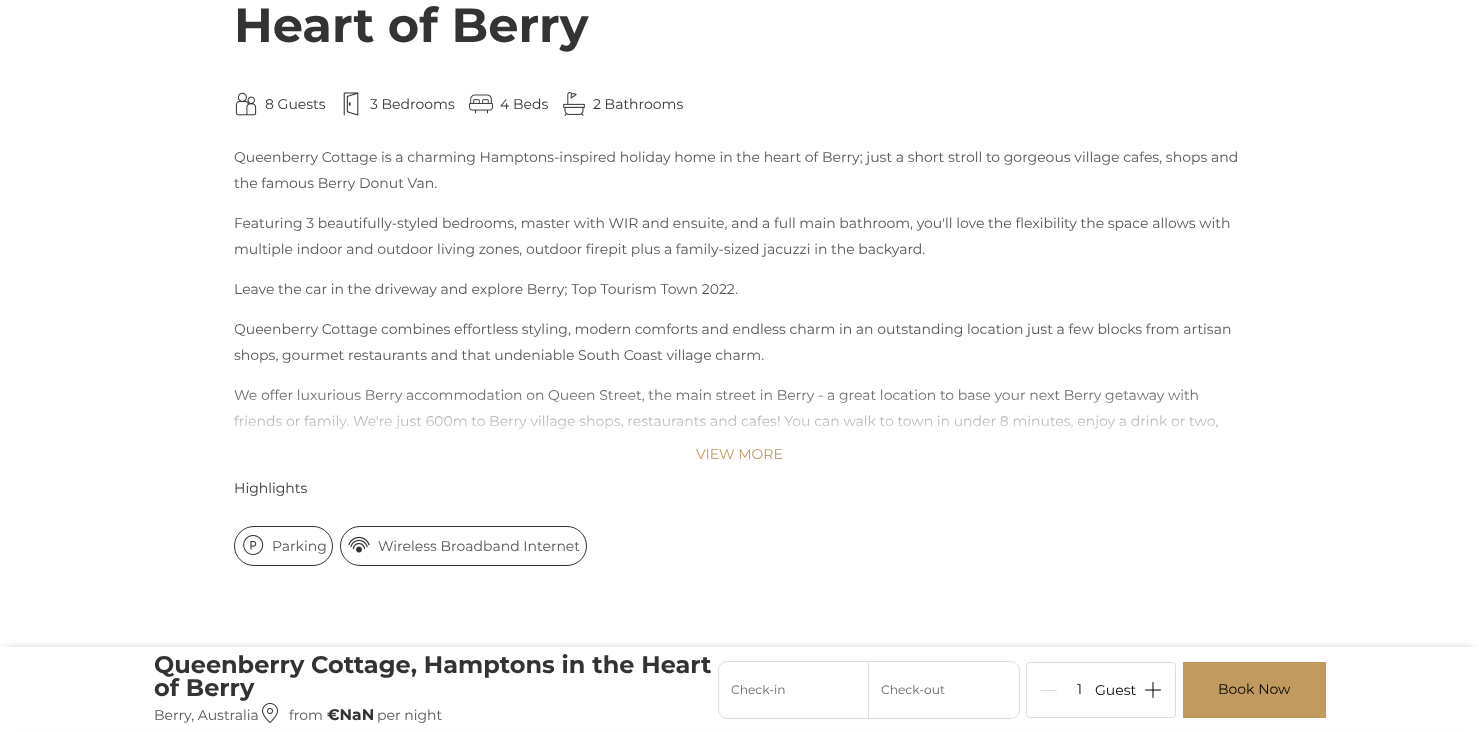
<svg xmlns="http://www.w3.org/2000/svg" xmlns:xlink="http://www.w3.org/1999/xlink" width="1479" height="732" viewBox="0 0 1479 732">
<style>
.cls-1{font:bold 48px Montserrat;fill:#333333}
.cls-2{font:14px Montserrat;fill:#333333}
.cls-3{font:14px Montserrat;fill:#555555}
.cls-4{font:14px Montserrat;fill:#c09a5e}
.cls-5{font:bold 24px Montserrat;fill:#333333}
.cls-6{font:bold 15.5px Montserrat;fill:#333333}
.cls-7{font:12.25px Montserrat;fill:#666666}
.cls-8{font:14px Montserrat;fill:#000000}
</style>
<defs>
<linearGradient id="g1" gradientUnits="userSpaceOnUse" x1="740" y1="388" x2="740" y2="444"><stop offset="0" stop-color="#ffffff" stop-opacity="0"/><stop offset="1" stop-color="#ffffff"/></linearGradient>
</defs>
<rect width="100%" height="100%" fill="#ffffff"/>
<image xlink:href="image0.png" x="235" y="92" width="22" height="24"/>
<image xlink:href="image1.png" x="343" y="92" width="16" height="24"/>
<image xlink:href="image2.png" x="469" y="94" width="24" height="20"/>
<image xlink:href="image3.png" x="563" y="92" width="22" height="24"/>
<rect fill="none" stroke="#333333" x="234.5" y="526.5" width="98" height="39" rx="19.5"/>
<image xlink:href="image4.png" x="243" y="535" width="21" height="20"/>
<rect fill="none" stroke="#333333" x="340.5" y="526.5" width="246" height="39" rx="19.5"/>
<image xlink:href="image5.png" x="348" y="536" width="22" height="17"/>
<rect fill="#000000" fill-opacity="0.29" filter="blur(4.5px)" x="6" y="649" width="1467" height="73"/>
<rect fill="#ffffff" x="0" y="647" width="1479" height="83"/>
<image xlink:href="image6.png" x="262" y="703" width="16" height="20"/>
<path fill="none" stroke="#dddddd" d="M727 661.5H869.5V718.5H727C722.5 718.5 718.5 714.5 718.5 710V670C718.5 665.5 722.5 661.5 727 661.5Z"/>
<path fill="#ffffff" stroke="#dddddd" d="M868.5 661.5H1011C1015.5 661.5 1019.5 665.5 1019.5 670V710C1019.5 714.5 1015.5 718.5 1011 718.5H868.5Z"/>
<rect fill="none" stroke="#dddddd" x="1026.5" y="662.5" width="149" height="55" rx="3.5"/>
<image xlink:href="image7.png" x="1041" y="690" width="16" height="1"/>
<image xlink:href="image8.png" x="1145" y="682" width="16" height="16"/>
<rect fill="#c09a5e" x="1183" y="662" width="143" height="56"/>
<text class="cls-1" x="234" y="42">Heart of Berry</text>
<text class="cls-2" x="265" y="109">8 Guests</text>
<text class="cls-2" x="370" y="109">3 Bedrooms</text>
<text class="cls-2" x="500" y="109">4 Beds</text>
<text class="cls-2" x="593" y="109">2 Bathrooms</text>
<text class="cls-3"><tspan x="234" y="162">Queenberry Cottage is a charming Hamptons-inspired holiday home in the heart of Berry; just a short stroll to gorgeous village cafes, shops and</tspan><tspan x="234" y="188">the famous Berry Donut Van.</tspan></text>
<text class="cls-3"><tspan x="234" y="228">Featuring 3 beautifully-styled bedrooms, master with WIR and ensuite, and a full main bathroom, you'll love the flexibility the space allows with</tspan><tspan x="234" y="254">multiple indoor and outdoor living zones, outdoor firepit plus a family-sized jacuzzi in the backyard.</tspan></text>
<text class="cls-3" x="234" y="294">Leave the car in the driveway and explore Berry; Top Tourism Town 2022.</text>
<text class="cls-3"><tspan x="234" y="334">Queenberry Cottage combines effortless styling, modern comforts and endless charm in an outstanding location just a few blocks from artisan</tspan><tspan x="234" y="360">shops, gourmet restaurants and that undeniable South Coast village charm.</tspan></text>
<text class="cls-3"><tspan x="234" y="400">We offer luxurious Berry accommodation on Queen Street, the main street in Berry - a great location to base your next Berry getaway with</tspan><tspan x="234" y="426">friends or family. We're just 600m to Berry village shops, restaurants and cafes! You can walk to town in under 8 minutes, enjoy a drink or two,</tspan></text>
<rect fill="url(#g1)" x="234" y="390" width="983" height="39"/>
<text class="cls-4" x="696" y="459">VIEW MORE</text>
<text class="cls-2" x="234" y="493">Highlights</text>
<text class="cls-3" x="272" y="551">Parking</text>
<text class="cls-3" x="378" y="551">Wireless Broadband Internet</text>
<text class="cls-5"><tspan x="154" y="673">Queenberry Cottage, Hamptons in the Heart</tspan><tspan x="154" y="696">of Berry</tspan></text>
<text class="cls-3" x="154" y="720">Berry, Australia</text>
<text class="cls-3" x="289" y="720">from</text>
<text class="cls-6" x="327" y="720">€NaN</text>
<text class="cls-3" x="377" y="720">per night</text>
<text class="cls-7" x="731" y="694">Check-in</text>
<text class="cls-7" x="881" y="694">Check-out</text>
<text class="cls-8" x="1077" y="694">1</text>
<text class="cls-8" x="1095" y="695">Guest</text>
<text class="cls-8" x="1218" y="694">Book Now</text>
</svg>
